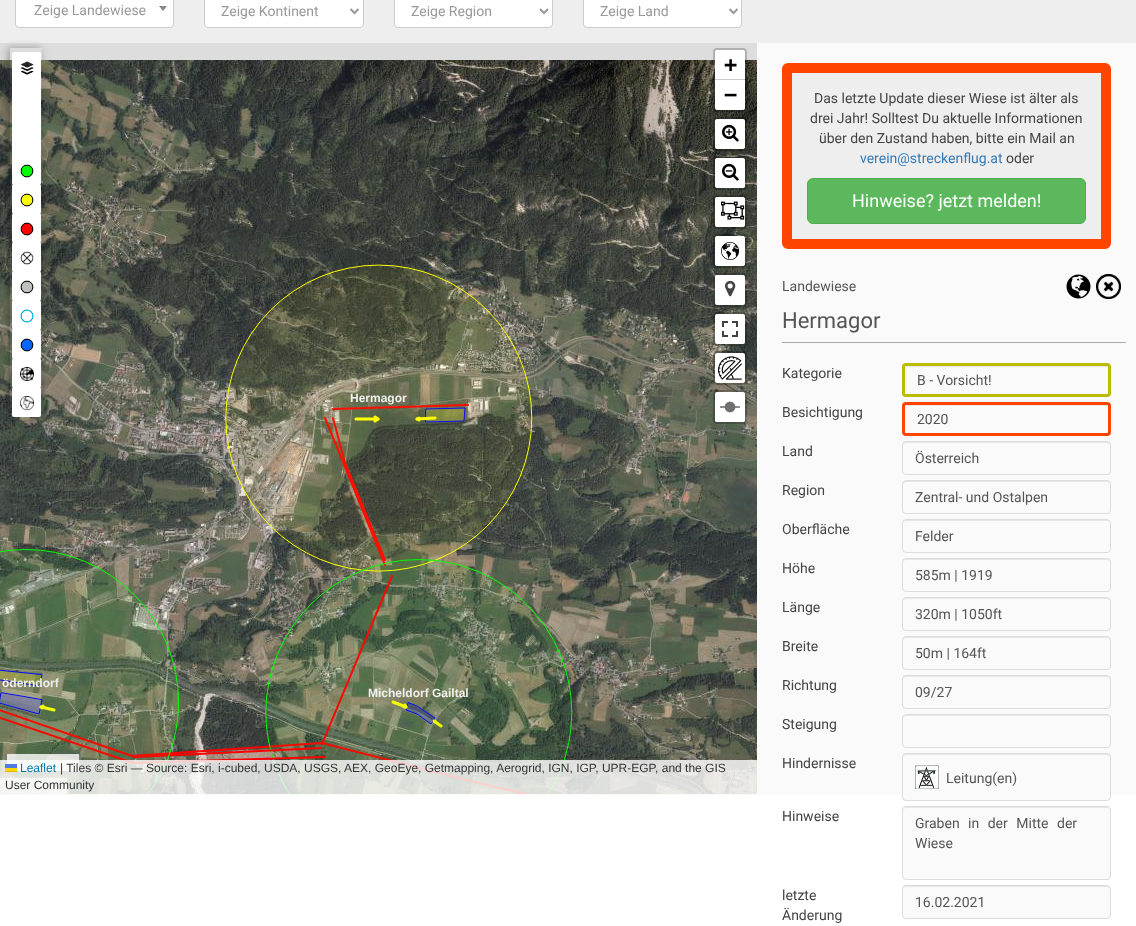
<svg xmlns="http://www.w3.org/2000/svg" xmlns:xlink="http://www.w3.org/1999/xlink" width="1136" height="926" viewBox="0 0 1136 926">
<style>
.cls-1{font:14px Roboto;fill:#999999}
.cls-2{font:bold 22px DejaVu Sans Mono;fill:#000000}
.cls-3{font:12px Liberation Sans;fill:#0078a8}
.cls-4{font:12px Liberation Sans;fill:#333333}
.cls-5{font:bold 12px Liberation Sans;fill:#f0f0ed}
.cls-6{font:14px Roboto;fill:#444444}
.cls-7{font:14px Roboto;fill:#337ab7}
.cls-8{font:18px Roboto;fill:#ffffff}
.cls-9{font:14px Roboto;fill:#555555}
.cls-10{font:22px Roboto;fill:#555555}
</style>
<defs>
<clipPath id="clip1"><path d="M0 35H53V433H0ZM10 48H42V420H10Z" clip-rule="evenodd"/></clipPath>
<clipPath id="clip2"><rect x="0" y="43" width="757" height="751"/></clipPath>
<clipPath id="clip3"><path d="M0 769H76V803H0ZM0 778H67V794H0Z" clip-rule="evenodd"/></clipPath>
</defs>
<rect width="100%" height="100%" fill="#ffffff"/>
<rect fill="#fafafa" x="0" y="43" width="1136" height="752"/>
<rect fill="#eeeeee" x="0" y="0" width="1136" height="43"/>
<rect fill="#ffffff" stroke="#cccccc" x="15.5" y="-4.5" width="158" height="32" rx="3.5"/>
<path fill="#888888" d="M159 6H167L163 11Z"/>
<rect fill="#ffffff" stroke="#cccccc" x="204.5" y="-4.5" width="159" height="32" rx="3.5"/>
<path fill="none" stroke="#999999" stroke-width="2" d="M350.5 9L354.5 13L358.5 9"/>
<rect fill="#ffffff" stroke="#cccccc" x="394.5" y="-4.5" width="158" height="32" rx="3.5"/>
<path fill="none" stroke="#999999" stroke-width="2" d="M540 9L544 13L548 9"/>
<rect fill="#ffffff" stroke="#cccccc" x="583.5" y="-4.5" width="158" height="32" rx="3.5"/>
<path fill="none" stroke="#999999" stroke-width="2" d="M729.5 9L733.5 13L737.5 9"/>
<rect fill="#dddddd" x="0" y="43" width="757" height="17"/>
<image xlink:href="image18.png" x="0" y="60" width="88" height="256"/>
<image xlink:href="image22.png" x="0" y="316" width="88" height="256"/>
<image xlink:href="image19.png" x="88" y="60" width="256" height="256"/>
<image xlink:href="image20.png" x="344" y="60" width="256" height="256"/>
<image xlink:href="image23.png" x="88" y="316" width="256" height="256"/>
<image xlink:href="image24.png" x="344" y="316" width="256" height="256"/>
<image xlink:href="image26.png" x="0" y="572" width="88" height="222"/>
<image xlink:href="image27.png" x="88" y="572" width="256" height="222"/>
<image xlink:href="image28.png" x="344" y="572" width="256" height="222"/>
<image xlink:href="image30.png" x="0" y="264" width="573" height="530"/>
<g clip-path="url(#clip1)">
<rect fill="#000000" fill-opacity="0.3" filter="blur(4px)" x="8" y="48" width="32" height="372"/>
</g>
<rect fill="#ffffff" x="12" y="52" width="29" height="30" rx="2"/>
<image xlink:href="image0.png" x="20" y="61" width="14" height="14"/>
<rect fill="#ffffff" x="12" y="77" width="29" height="30" rx="2"/>
<rect fill="#ffffff" x="12" y="102" width="29" height="30" rx="2"/>
<rect fill="#ffffff" x="12" y="127" width="29" height="30" rx="2"/>
<rect fill="#ffffff" x="12" y="155" width="29" height="30" rx="2"/>
<image xlink:href="image1.png" x="20" y="164" width="14" height="14"/>
<rect fill="#ffffff" x="12" y="184" width="29" height="30" rx="2"/>
<image xlink:href="image2.png" x="20" y="193" width="14" height="14"/>
<rect fill="#ffffff" x="12" y="213" width="29" height="30" rx="2"/>
<image xlink:href="image3.png" x="20" y="222" width="14" height="14"/>
<rect fill="#ffffff" x="12" y="242" width="29" height="30" rx="2"/>
<image xlink:href="image4.png" x="20" y="251" width="14" height="14"/>
<rect fill="#ffffff" x="12" y="271" width="29" height="30" rx="2"/>
<image xlink:href="image5.png" x="20" y="280" width="14" height="14"/>
<rect fill="#ffffff" x="12" y="300" width="29" height="30" rx="2"/>
<image xlink:href="image6.png" x="20" y="309" width="14" height="14"/>
<rect fill="#ffffff" x="12" y="329" width="29" height="30" rx="2"/>
<image xlink:href="image7.png" x="20" y="338" width="14" height="14"/>
<rect fill="#ffffff" x="12" y="358" width="29" height="30" rx="2"/>
<image xlink:href="image8.png" x="20" y="367" width="14" height="14"/>
<rect fill="#ffffff" x="12" y="387" width="29" height="30" rx="2"/>
<image xlink:href="image9.png" x="20" y="396" width="14" height="14"/>
<image xlink:href="image21.png" x="600" y="60" width="157" height="256"/>
<rect fill="none" stroke="#000000" stroke-opacity="0.2" stroke-width="2" x="714" y="49" width="32" height="62" rx="3"/>
<path fill="#ffffff" d="M717 50H743C744 50 745 51 745 52V80H715V52C715 51 716 50 717 50Z"/>
<rect fill="#cccccc" x="715" y="79" width="30" height="1"/>
<path fill="#ffffff" d="M715 80H745V108C745 109 744 110 743 110H717C716 110 715 109 715 108Z"/>
<rect fill="#ffffff" x="715" y="119" width="30" height="30" rx="2"/>
<rect fill="none" stroke="#000000" stroke-opacity="0.2" stroke-width="2" x="714" y="118" width="32" height="32" rx="3"/>
<rect fill="#ffffff" x="715" y="119" width="30" height="30" rx="4"/>
<image xlink:href="image10.png" x="722" y="124" width="17" height="18"/>
<rect fill="#ffffff" x="715" y="158" width="30" height="30" rx="2"/>
<rect fill="none" stroke="#000000" stroke-opacity="0.2" stroke-width="2" x="714" y="157" width="32" height="32" rx="3"/>
<rect fill="#ffffff" x="715" y="158" width="30" height="30" rx="4"/>
<image xlink:href="image11.png" x="722" y="163" width="17" height="18"/>
<rect fill="#ffffff" x="715" y="197" width="30" height="30" rx="2"/>
<rect fill="none" stroke="#000000" stroke-opacity="0.2" stroke-width="2" x="714" y="196" width="32" height="32" rx="3"/>
<rect fill="#ffffff" x="715" y="197" width="30" height="30" rx="4"/>
<image xlink:href="image12.png" x="721" y="201" width="24" height="19"/>
<rect fill="#ffffff" x="715" y="236" width="30" height="30" rx="2"/>
<rect fill="none" stroke="#000000" stroke-opacity="0.2" stroke-width="2" x="714" y="235" width="32" height="32" rx="3"/>
<rect fill="#ffffff" x="715" y="236" width="30" height="30" rx="4"/>
<image xlink:href="image13.png" x="721" y="242" width="18" height="18"/>
<rect fill="none" stroke="#000000" stroke-opacity="0.2" stroke-width="2" x="714" y="274" width="32" height="32" rx="3"/>
<rect fill="#ffffff" x="715" y="275" width="30" height="30" rx="2"/>
<image xlink:href="image14.png" x="725" y="280" width="11" height="17"/>
<image xlink:href="image25.png" x="600" y="316" width="157" height="256"/>
<rect fill="none" stroke="#000000" stroke-opacity="0.2" stroke-width="2" x="714" y="313" width="32" height="32" rx="3"/>
<rect fill="#ffffff" x="715" y="314" width="30" height="30" rx="2"/>
<image xlink:href="image15.png" x="722" y="321" width="16" height="16"/>
<rect fill="#ffffff" x="715" y="353" width="30" height="30" rx="2"/>
<image xlink:href="image16.png" x="718" y="356" width="24" height="24"/>
<rect fill="none" stroke="#000000" stroke-opacity="0.2" stroke-width="2" x="714" y="352" width="32" height="32" rx="3"/>
<rect fill="#ffffff" x="715" y="392" width="30" height="30" rx="2"/>
<rect fill="none" stroke="#000000" stroke-opacity="0.2" stroke-width="2" x="714" y="391" width="32" height="32" rx="3"/>
<path fill="#ffffff" d="M719 392H741C743 392 745 394 745 396V420C745 421 744 422 743 422H717C716 422 715 421 715 420V396C715 394 717 392 719 392Z"/>
<image xlink:href="image17.png" x="720" y="401" width="20" height="12"/>
<rect fill="#ffffff" fill-opacity="0.8" x="7" y="754" width="72" height="17"/>
<rect fill="#777777" x="79" y="754" width="2" height="19"/>
<rect fill="#777777" x="5" y="771" width="76" height="2"/>
<rect fill="#777777" x="5" y="754" width="2" height="19"/>
<g clip-path="url(#clip2)">
<g clip-path="url(#clip3)">
<rect fill="#bbbbbb" filter="blur(2.5px)" x="0" y="778" width="67" height="16"/>
</g>
</g>
<rect fill="#ffffff" fill-opacity="0.7" x="0" y="778" width="67" height="16"/>
<image xlink:href="image29.png" x="600" y="572" width="157" height="222"/>
<rect fill="#ffffff" fill-opacity="0.8" x="0" y="760" width="757" height="34"/>
<rect fill="#4c7be1" x="5" y="764" width="12" height="4"/>
<rect fill="#ffd500" x="5" y="768" width="12" height="3"/>
<rect fill="#e0bc00" x="5" y="771" width="12" height="1"/>
<rect fill="#eeeeee" stroke="#ff4400" stroke-width="10" x="787" y="68" width="319" height="176" rx="1"/>
<rect fill="#5cb85c" stroke="#4cae4c" x="807.5" y="178.5" width="278" height="45" rx="5.5"/>
<image xlink:href="image31.png" x="1066" y="274" width="25" height="25"/>
<image xlink:href="image32.png" x="1096" y="274" width="25" height="25"/>
<rect fill="#aaaaaa" x="782" y="342" width="344" height="1"/>
<path fill="#e7e7e7" d="M906 366L905 367H1107L1108 368C1108 367 1108 366 1107 366Z"/>
<rect fill="none" stroke="#bbbb00" stroke-width="3" x="903.5" y="364.5" width="206" height="31" rx="2.5"/>
<path fill="#e7e7e7" d="M906 405L905 406H1107H1108C1108 406 1108 405 1107 405Z"/>
<rect fill="none" stroke="#ff4400" stroke-width="3" x="903.5" y="403.5" width="206" height="31" rx="2.5"/>
<path fill="#e7e7e7" d="M906 443H1107C1109 443 1110 444 1110 446C1110 444 1109 442 1107 442H905C903 443 903 444 903 446C903 444 904 443 906 443Z"/>
<rect fill="none" stroke="#dddddd" x="902.5" y="441.5" width="208" height="33" rx="3.5"/>
<path fill="#e7e7e7" d="M906 482H1107C1109 482 1110 483 1110 485C1110 483 1109 481 1107 481H905C903 482 903 483 903 485C903 483 904 482 906 482Z"/>
<rect fill="none" stroke="#dddddd" x="902.5" y="480.5" width="208" height="33" rx="3.5"/>
<path fill="#e7e7e7" d="M906 521H1107C1109 521 1110 522 1110 524C1110 522 1109 520 1107 520H905C903 521 903 522 903 524C903 522 904 521 906 521Z"/>
<rect fill="none" stroke="#dddddd" x="902.5" y="519.5" width="208" height="33" rx="3.5"/>
<path fill="#e7e7e7" d="M906 560H1107C1109 560 1110 561 1110 563C1110 561 1109 559 1107 559H905C903 560 903 561 903 563C903 561 904 560 906 560Z"/>
<rect fill="none" stroke="#dddddd" x="902.5" y="558.5" width="208" height="33" rx="3.5"/>
<path fill="#e7e7e7" d="M906 599H1107C1109 599 1110 600 1110 602C1110 600 1109 598 1107 598H905C903 599 903 600 903 602C903 600 904 599 906 599Z"/>
<rect fill="none" stroke="#dddddd" x="902.5" y="597.5" width="208" height="33" rx="3.5"/>
<path fill="#e7e7e7" d="M906 638H1107C1109 638 1110 639 1110 641C1110 639 1109 637 1107 637H905C903 638 903 639 903 641C903 639 904 638 906 638Z"/>
<rect fill="none" stroke="#dddddd" x="902.5" y="636.5" width="208" height="33" rx="3.5"/>
<path fill="#e7e7e7" d="M906 677H1107C1109 677 1110 678 1110 680C1110 678 1109 676 1107 676H905C903 677 903 678 903 680C903 678 904 677 906 677Z"/>
<rect fill="none" stroke="#dddddd" x="902.5" y="675.5" width="208" height="33" rx="3.5"/>
<path fill="#e7e7e7" d="M906 716H1107C1109 716 1110 717 1110 719C1110 717 1109 715 1107 715H905C903 716 903 717 903 719C903 717 904 716 906 716Z"/>
<rect fill="none" stroke="#dddddd" x="902.5" y="714.5" width="208" height="33" rx="3.5"/>
<rect fill="#fafafa" x="902" y="753" width="209" height="48" rx="4"/>
<path fill="#e7e7e7" d="M906 755H1107C1109 755 1110 756 1110 758C1110 756 1109 754 1107 754H905C903 755 903 756 903 758C903 756 904 755 906 755Z"/>
<rect fill="none" stroke="#dddddd" x="902.5" y="753.5" width="208" height="47" rx="3.5"/>
<image xlink:href="image33.png" x="915" y="765" width="24" height="24"/>
<rect fill="#fafafa" x="902" y="806" width="209" height="74" rx="4"/>
<path fill="#e7e7e7" d="M906 808H1107C1109 808 1110 809 1110 811C1110 809 1109 807 1107 807H905C903 808 903 809 903 811C903 809 904 808 906 808Z"/>
<rect fill="none" stroke="#dddddd" x="902.5" y="806.5" width="208" height="73" rx="3.5"/>
<rect fill="#fafafa" x="902" y="885" width="209" height="34" rx="4"/>
<path fill="#e7e7e7" d="M906 887H1107C1109 887 1110 888 1110 890C1110 888 1109 886 1107 886H905C903 887 903 888 903 890C903 888 904 887 906 887Z"/>
<rect fill="none" stroke="#dddddd" x="902.5" y="885.5" width="208" height="33" rx="3.5"/>
<text class="cls-1" x="34" y="15">Zeige Landewiese</text>
<text class="cls-1" x="221" y="16">Zeige Kontinent</text>
<text class="cls-1" x="411" y="16">Zeige Region</text>
<text class="cls-1" x="600" y="16">Zeige Land</text>
<text class="cls-2"><tspan x="724" y="72">+</tspan><tspan x="724" y="102">−</tspan></text>
<text class="cls-3" x="20" y="772">Leaflet</text>
<text class="cls-4" x="60" y="772">| Tiles © Esri — Source: Esri, i-cubed, USDA, USGS, AEX, GeoEye, Getmapping, Aerogrid, IGN, IGP, UPR-EGP, and the GIS</text>
<text class="cls-4" x="5" y="789">User Community</text>
<text class="cls-5" x="350" y="402">Hermagor</text>
<text class="cls-5" x="2" y="687">öderndorf</text>
<text class="cls-5" x="368" y="697">Micheldorf Gailtal</text>
<text class="cls-6" x="814" y="103">Das letzte Update dieser Wiese ist älter als</text>
<text class="cls-6" x="810" y="123">drei Jahr! Solltest Du aktuelle Informationen</text>
<text class="cls-6" x="819" y="143">über den Zustand haben, bitte ein Mail an</text>
<text class="cls-7" x="860" y="163">verein@streckenflug.at</text>
<text class="cls-6" x="1006" y="163">oder</text>
<text class="cls-8" x="852" y="207">Hinweise? jetzt melden!</text>
<text class="cls-9" x="782" y="291">Landewiese</text>
<text class="cls-10" x="782" y="328">Hermagor</text>
<text class="cls-6" x="782" y="378">Kategorie</text>
<text class="cls-9" x="917" y="385">B - Vorsicht!</text>
<text class="cls-6" x="782" y="417">Besichtigung</text>
<text class="cls-9" x="917" y="424">2020</text>
<text class="cls-6" x="782" y="456">Land</text>
<text class="cls-9" x="915" y="463">Österreich</text>
<text class="cls-6" x="782" y="495">Region</text>
<text class="cls-9" x="915" y="502">Zentral- und Ostalpen</text>
<text class="cls-6" x="782" y="534">Oberfläche</text>
<text class="cls-9" x="915" y="541">Felder</text>
<text class="cls-6" x="782" y="573">Höhe</text>
<text class="cls-9" x="915" y="580">585m | 1919</text>
<text class="cls-6" x="782" y="612">Länge</text>
<text class="cls-9" x="915" y="619">320m | 1050ft</text>
<text class="cls-6" x="782" y="651">Breite</text>
<text class="cls-9" x="915" y="658">50m | 164ft</text>
<text class="cls-6" x="782" y="690">Richtung</text>
<text class="cls-9" x="915" y="697">09/27</text>
<text class="cls-6" x="782" y="729">Steigung</text>
<text class="cls-6" x="782" y="768">Hindernisse</text>
<text class="cls-9" x="946" y="783">Leitung(en)</text>
<text class="cls-6" x="782" y="821">Hinweise</text>
<text class="cls-9" x="915" y="828" word-spacing="5">Graben in der Mitte</text>
<text class="cls-9" x="1057" y="828">der</text>
<text class="cls-9" x="915" y="848">Wiese</text>
<text class="cls-6"><tspan x="782" y="900">letzte</tspan><tspan x="782" y="920">Änderung</tspan></text>
<text class="cls-9" x="915" y="907">16.02.2021</text>
</svg>
